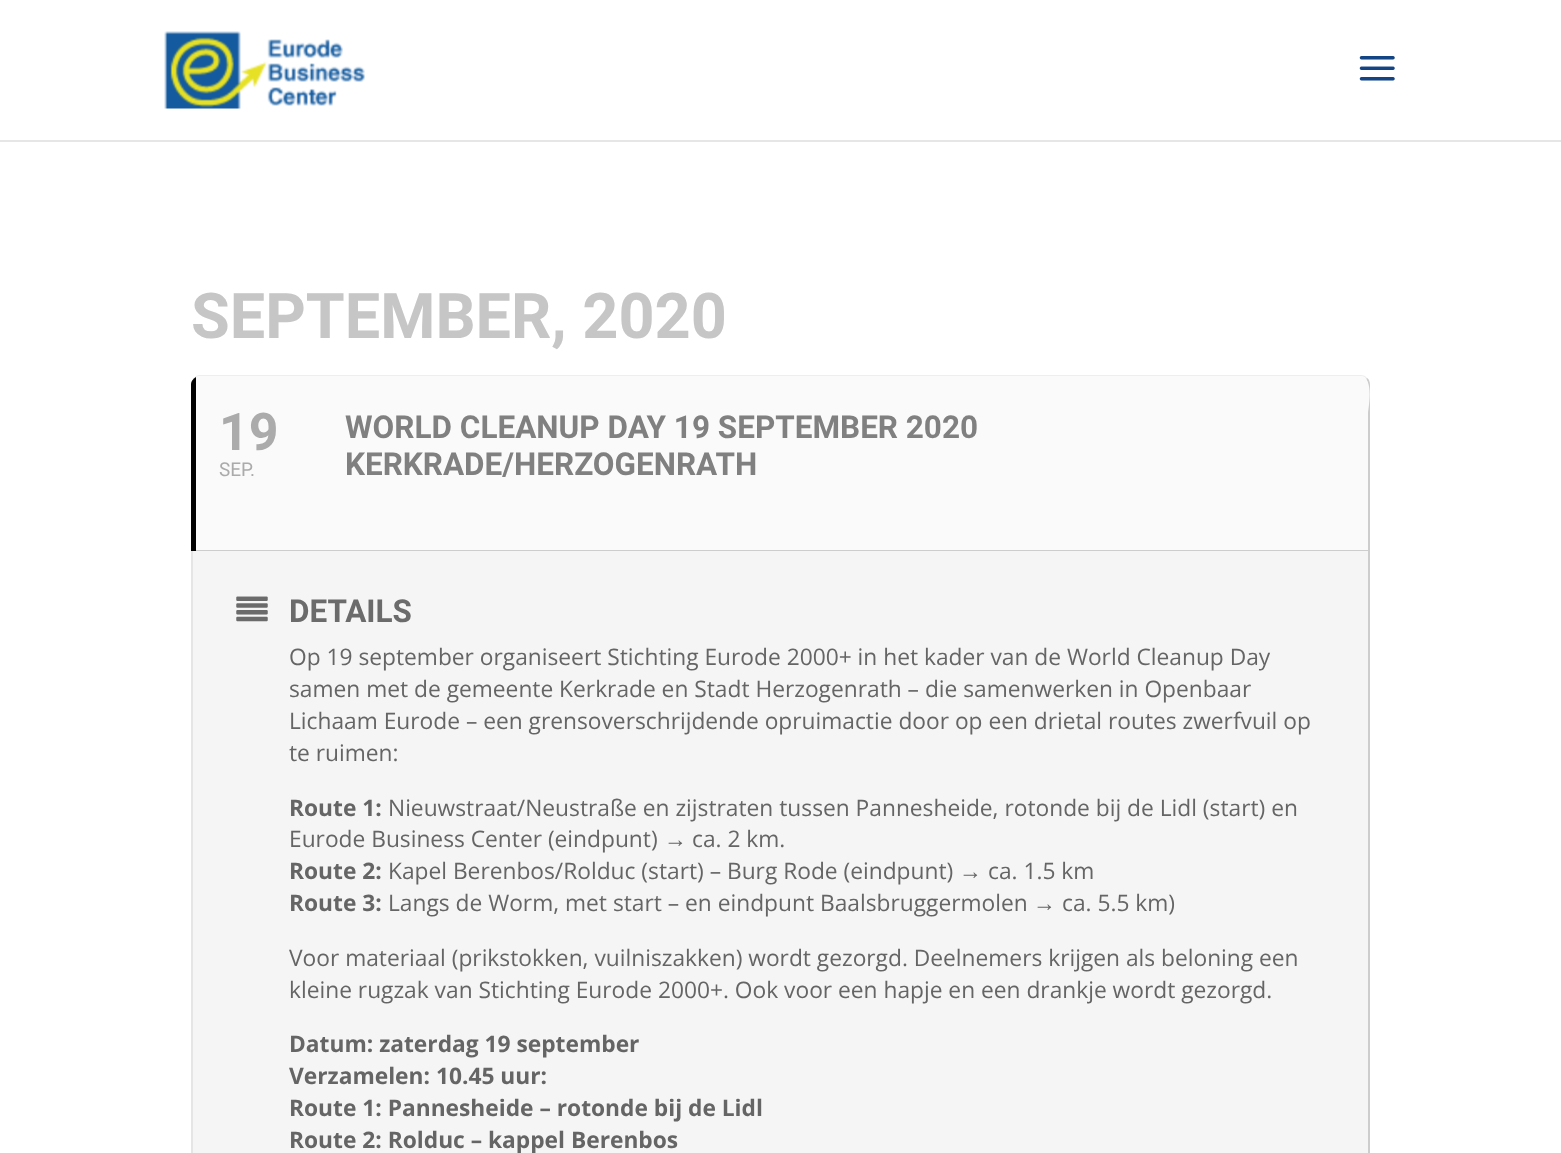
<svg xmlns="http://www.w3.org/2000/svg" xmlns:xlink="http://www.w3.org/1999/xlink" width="1561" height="1153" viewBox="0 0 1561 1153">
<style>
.cls-1{font:bold 63px Roboto;fill:#c6c6c6}
.cls-2{font:bold 52px Roboto;fill:#ababab}
.cls-3{font:19px Roboto;fill:#ababab}
.cls-4{font:bold 31.5px Roboto;fill:#808080}
.cls-5{font:bold 31.5px Roboto;fill:#6b6b6b}
.cls-6{font:22.75px Open Sans;fill:#656565}
.cls-7{font:bold 22.75px Open Sans;fill:#656565}
.cls-8{font:22.75px Liberation Serif;fill:#656565}
</style>
<rect width="100%" height="100%" fill="#ffffff"/>
<rect fill="#e6e6e6" x="0" y="140" width="1561" height="2"/>
<image xlink:href="image0.png" x="164" y="31" width="201" height="78"/>
<image xlink:href="image1.png" x="1359" y="56" width="36" height="25"/>
<path fill="#efeeee" d="M201 376C195 376 191 380 191 385C191 383 192 381 193 379C194 377 197 375 200 375H1361C1363 375 1366 376 1367 378L1366 379C1365 377 1363 376 1360 376Z"/>
<path fill="#cdcdcd" d="M1360 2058C1365 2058 1368 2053 1368 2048V385C1368 383 1367 380 1366 379L1367 378C1369 379 1370 382 1370 385V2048C1370 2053 1365 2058 1360 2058Z"/>
<path fill="#fafafa" d="M191 384C191 379 197 376 201 376H1360C1375 376 1368 410 1368 413V551H191Z"/>
<path fill="#000000" d="M191 384C191 381 193 379 196 377V551H191Z"/>
<rect fill="#cdcdcd" x="196" y="550" width="1172" height="1"/>
<path fill="#f5f5f5" d="M191 551V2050C192 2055 196 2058 201 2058H1360C1365 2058 1368 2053 1368 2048V551Z"/>
<path fill="#e5e5e5" d="M191 551H193V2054C192 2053 191 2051 191 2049Z"/>
<image xlink:href="image2.png" x="236" y="596" width="32" height="26"/>
<text class="cls-1" x="191" y="338">SEPTEMBER, 2020</text>
<text class="cls-2" x="219" y="450">19</text>
<text class="cls-3" x="219" y="476">SEP.</text>
<text class="cls-4"><tspan x="345" y="438">WORLD CLEANUP DAY 19 SEPTEMBER 2020</tspan><tspan x="345" y="475">KERKRADE/HERZOGENRATH</tspan></text>
<text class="cls-5" x="289" y="622">DETAILS</text>
<text class="cls-6"><tspan x="289" y="665">Op 19 september organiseert Stichting Eurode 2000+ in het kader van de World Cleanup Day</tspan><tspan x="289" y="697">samen met de gemeente Kerkrade en Stadt Herzogenrath – die samenwerken in Openbaar</tspan><tspan x="289" y="729">Lichaam Eurode – een grensoverschrijdende opruimactie door op een drietal routes zwerfvuil op</tspan><tspan x="289" y="761">te ruimen:</tspan></text>
<text class="cls-7" x="289" y="816">Route 1:</text>
<text class="cls-6" x="388" y="816">Nieuwstraat/Neustraße en zijstraten tussen Pannesheide, rotonde bij de Lidl (start) en</text>
<text class="cls-6" x="289" y="847">Eurode Business Center (eindpunt)</text>
<text class="cls-8" x="664" y="847">→</text>
<text class="cls-6" x="692" y="847">ca. 2 km.</text>
<text class="cls-7" x="289" y="879">Route 2:</text>
<text class="cls-6" x="388" y="879">Kapel Berenbos/Rolduc (start) – Burg Rode (eindpunt)</text>
<text class="cls-8" x="959" y="879">→</text>
<text class="cls-6" x="988" y="879">ca. 1.5 km</text>
<text class="cls-7" x="289" y="911">Route 3:</text>
<text class="cls-6" x="388" y="911">Langs de Worm, met start – en eindpunt Baalsbruggermolen</text>
<text class="cls-8" x="1033" y="911">→</text>
<text class="cls-6" x="1062" y="911">ca. 5.5 km)</text>
<text class="cls-6"><tspan x="289" y="966">Voor materiaal (prikstokken, vuilniszakken) wordt gezorgd. Deelnemers krijgen als beloning een</tspan><tspan x="289" y="998">kleine rugzak van Stichting Eurode 2000+. Ook voor een hapje en een drankje wordt gezorgd.</tspan></text>
<text class="cls-7"><tspan x="289" y="1052">Datum: zaterdag 19 september</tspan><tspan x="289" y="1084">Verzamelen: 10.45 uur:</tspan><tspan x="289" y="1116">Route 1: Pannesheide – rotonde bij de Lidl</tspan><tspan x="289" y="1148">Route 2: Rolduc – kappel Berenbos</tspan></text>
</svg>
